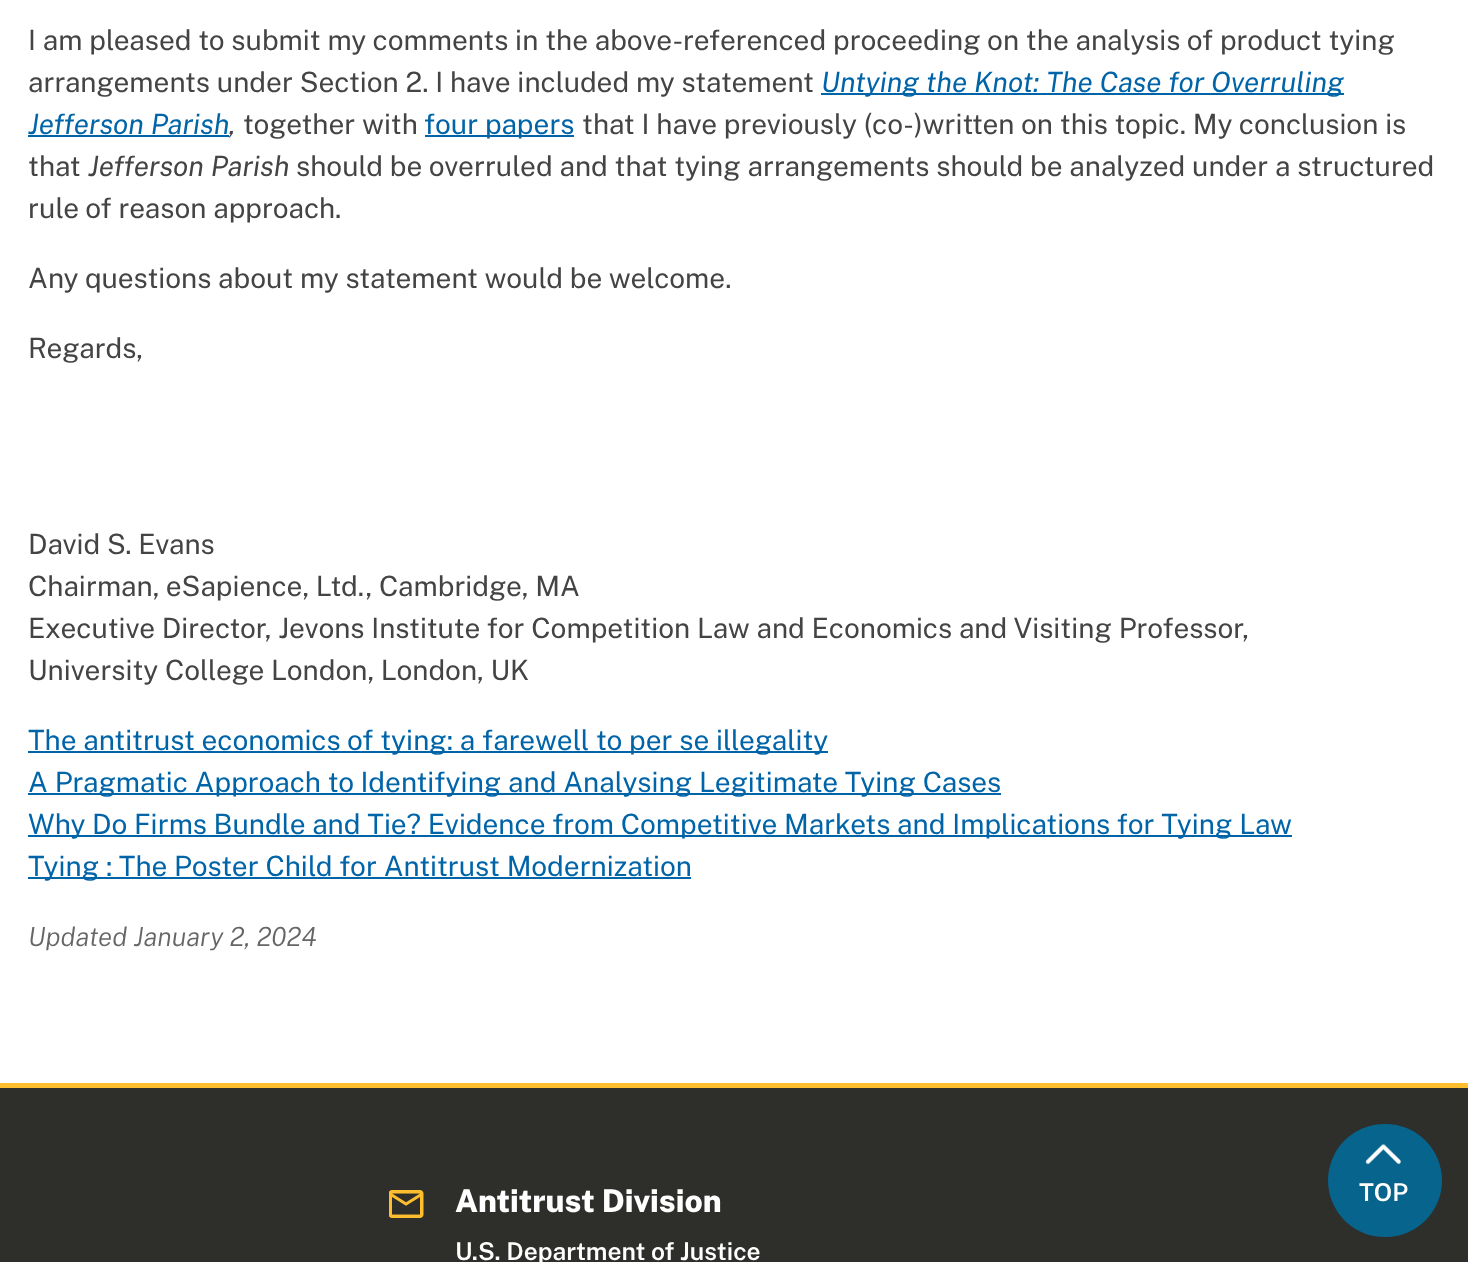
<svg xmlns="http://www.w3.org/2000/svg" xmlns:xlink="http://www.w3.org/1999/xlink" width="1468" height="1262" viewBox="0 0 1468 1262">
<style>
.cls-1{font:28px Public Sans;fill:#444444}
.cls-2{font:italic 28px Public Sans;fill:#0064a8}
.cls-3{font:italic 28px Public Sans;fill:#444444}
.cls-4{font:28px Public Sans;fill:#0064a8}
.cls-5{font:italic 300 26.25px Public Sans;fill:#666666}
.cls-6{font:800 31.5px Public Sans;fill:#ffffff}
.cls-7{font:600 24.6px Public Sans;fill:#ffffff}
</style>
<rect width="100%" height="100%" fill="#ffffff"/>
<rect fill="#0064a8" x="821" y="93" width="523" height="2"/>
<rect fill="#0064a8" x="28" y="135" width="201" height="2"/>
<rect fill="#0064a8" x="425" y="135" width="149" height="2"/>
<rect fill="#0064a8" x="28" y="751" width="800" height="2"/>
<rect fill="#0064a8" x="28" y="793" width="973" height="2"/>
<rect fill="#0064a8" x="28" y="835" width="1264" height="2"/>
<rect fill="#0064a8" x="28" y="877" width="663" height="2"/>
<rect fill="#2e2e2a" x="0" y="1088" width="1468" height="174"/>
<rect fill="#ffbe2e" x="0" y="1083" width="1468" height="5"/>
<image xlink:href="image0.png" x="389" y="1190" width="35" height="28"/>
<rect fill="#07648d" x="1328" y="1124" width="114" height="113" rx="56.5"/>
<image xlink:href="image1.png" x="1365" y="1144" width="36" height="21"/>
<text class="cls-1"><tspan x="28" y="50">I am pleased to submit my comments in the above-referenced proceeding on the analysis of product tying</tspan><tspan x="28" y="92">arrangements under Section 2. I have included my statement</tspan></text>
<text class="cls-2" x="821" y="92">Untying the Knot: The Case for Overruling</text>
<text class="cls-2" x="28" y="134">Jefferson Parish</text>
<text class="cls-3" x="229" y="134">,</text>
<text class="cls-1" x="243" y="134">together with</text>
<text class="cls-4" x="424" y="134">four papers</text>
<text class="cls-1" x="582" y="134">that I have previously (co-)written on this topic. My conclusion is</text>
<text class="cls-1" x="28" y="176">that</text>
<text class="cls-3" x="88" y="176">Jefferson Parish</text>
<text class="cls-1" x="296" y="176">should be overruled and that tying arrangements should be analyzed under a structured</text>
<text class="cls-1" x="28" y="218">rule of reason approach.</text>
<text class="cls-1" x="28" y="288">Any questions about my statement would be welcome.</text>
<text class="cls-1" x="28" y="358">Regards,</text>
<text class="cls-1"><tspan x="28" y="554">David S. Evans</tspan><tspan x="28" y="596">Chairman, eSapience, Ltd., Cambridge, MA</tspan><tspan x="28" y="638">Executive Director, Jevons Institute for Competition Law and Economics and Visiting Professor,</tspan><tspan x="28" y="680">University College London, London, UK</tspan></text>
<text class="cls-4"><tspan x="28" y="750">The antitrust economics of tying: a farewell to per se illegality</tspan><tspan x="28" y="792">A Pragmatic Approach to Identifying and Analysing Legitimate Tying Cases</tspan><tspan x="28" y="834">Why Do Firms Bundle and Tie? Evidence from Competitive Markets and Implications for Tying Law</tspan><tspan x="28" y="876">Tying : The Poster Child for Antitrust Modernization</tspan></text>
<text class="cls-5" x="28" y="946">Updated January 2, 2024</text>
<text class="cls-6" x="455" y="1212">Antitrust Division</text>
<text class="cls-7" x="455" y="1260">U.S. Department of Justice</text>
<text class="cls-7" x="1359" y="1201">TOP</text>
</svg>
